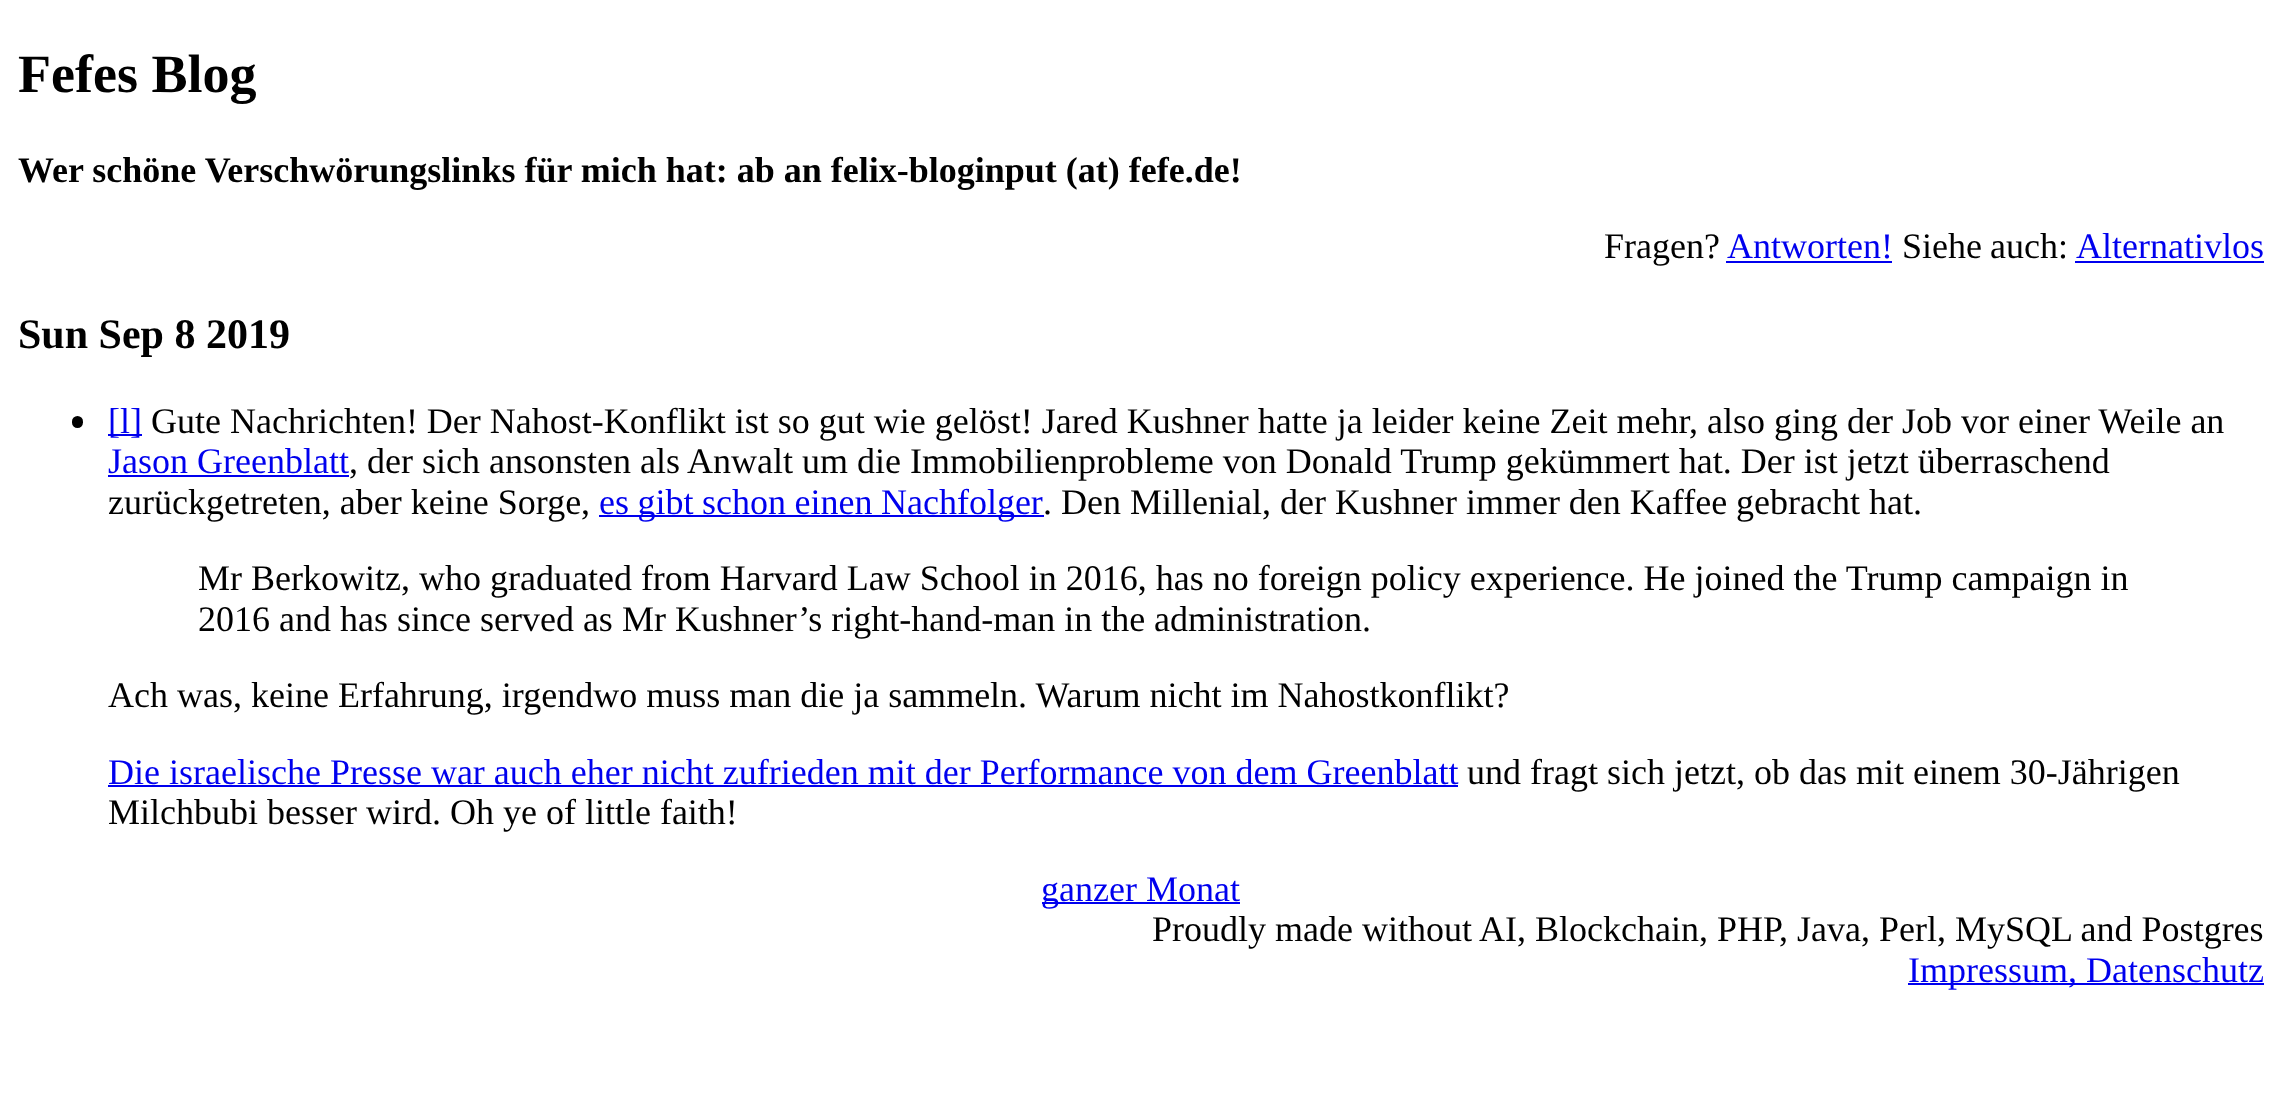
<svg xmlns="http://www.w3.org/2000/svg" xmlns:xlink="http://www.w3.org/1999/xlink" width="2280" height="1105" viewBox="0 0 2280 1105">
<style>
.cls-1{font:bold 54px Liberation Serif;fill:#000000}
.cls-2{font:bold 36px Liberation Serif;fill:#000000}
.cls-3{font:36px Liberation Serif;fill:#000000}
.cls-4{font:36px Liberation Serif;fill:#0000ee}
.cls-5{font:bold 42px Liberation Serif;fill:#000000}
</style>
<rect width="100%" height="100%" fill="#ffffff"/>
<rect fill="#0000ee" x="1726" y="261" width="166" height="2"/>
<rect fill="#0000ee" x="2075" y="261" width="189" height="2"/>
<rect fill="#000000" x="72" y="416" width="11" height="12" rx="5.5"/>
<rect fill="#0000ee" x="108" y="434" width="34" height="2"/>
<rect fill="#0000ee" x="108" y="475" width="241" height="2"/>
<rect fill="#0000ee" x="599" y="515" width="445" height="2"/>
<rect fill="#0000ee" x="108" y="785" width="1350" height="2"/>
<rect fill="#0000ee" x="1042" y="902" width="198" height="2"/>
<rect fill="#0000ee" x="1908" y="983" width="356" height="2"/>
<text class="cls-1" x="18" y="92">Fefes Blog</text>
<text class="cls-2" x="18" y="182">Wer schöne Verschwörungslinks für mich hat: ab an felix-bloginput (at) fefe.de!</text>
<text class="cls-3" x="1604" y="258">Fragen?</text>
<text class="cls-4" x="1727" y="258">Antworten!</text>
<text class="cls-3" x="1902" y="258" word-spacing="-1">Siehe auch:</text>
<text class="cls-4" x="2076" y="258">Alternativlos</text>
<text class="cls-5" x="18" y="348">Sun Sep 8 2019</text>
<text class="cls-4" x="108" y="433">[l]</text>
<text class="cls-3" x="151" y="433">Gute Nachrichten! Der Nahost-Konflikt ist so gut wie gelöst! Jared Kushner hatte ja leider keine Zeit mehr, also ging der Job vor einer Weile an</text>
<text class="cls-4" x="108" y="473">Jason Greenblatt</text>
<text class="cls-3" x="349" y="473">, der sich ansonsten als Anwalt um die Immobilienprobleme von Donald Trump gekümmert hat. Der ist jetzt überraschend</text>
<text class="cls-3" x="108" y="514">zurückgetreten, aber keine Sorge,</text>
<text class="cls-4" x="599" y="514" word-spacing="-0.5">es gibt schon einen Nachfolger</text>
<text class="cls-3" x="1043" y="514">. Den Millenial, der Kushner immer den Kaffee gebracht hat.</text>
<text class="cls-3"><tspan x="198" y="590">Mr Berkowitz, who graduated from Harvard Law School in 2016, has no foreign policy experience. He joined the Trump campaign in</tspan><tspan x="198" y="631">2016 and has since served as Mr Kushner’s right-hand-man in the administration.</tspan></text>
<text class="cls-3" x="108" y="707">Ach was, keine Erfahrung, irgendwo muss man die ja sammeln. Warum nicht im Nahostkonflikt?</text>
<text class="cls-4" x="108" y="784">Die israelische Presse war auch eher nicht zufrieden mit der Performance von dem Greenblatt</text>
<text class="cls-3" x="1467" y="784">und fragt sich jetzt, ob das mit einem 30-Jährigen</text>
<text class="cls-3" x="108" y="824">Milchbubi besser wird. Oh ye of little faith!</text>
<text class="cls-4" x="1041" y="901">ganzer Monat</text>
<text class="cls-3" x="1152" y="941">Proudly made without AI, Blockchain, PHP, Java, Perl, MySQL and Postgres</text>
<text class="cls-4" x="1908" y="982">Impressum, Datenschutz</text>
</svg>
